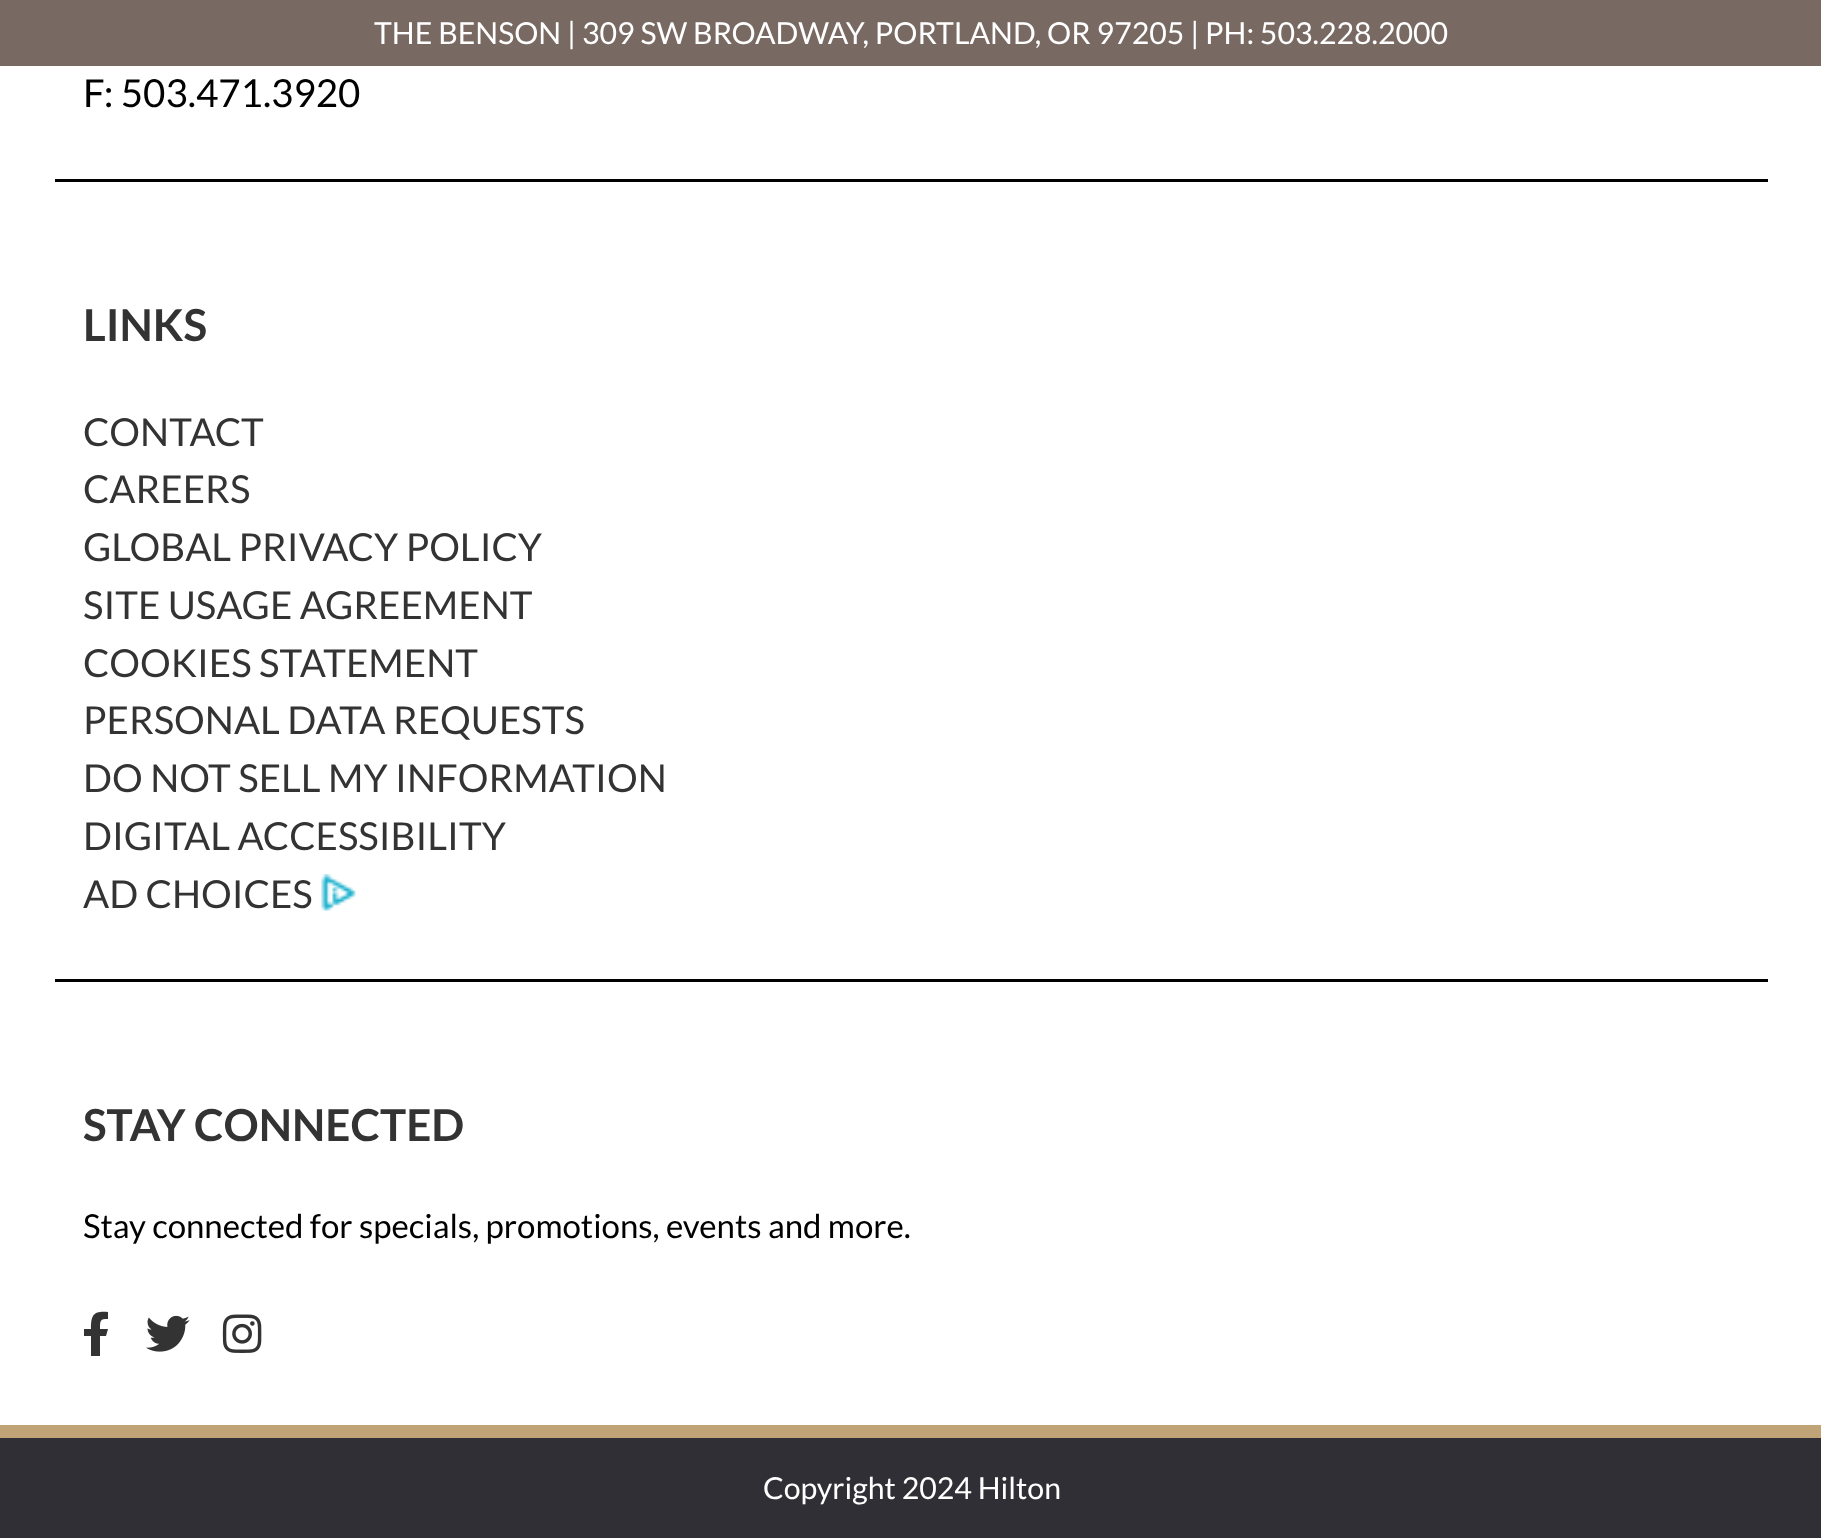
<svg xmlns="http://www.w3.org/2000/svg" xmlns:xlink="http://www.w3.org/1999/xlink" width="1821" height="1538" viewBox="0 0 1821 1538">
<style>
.cls-1{font:30.25px Lato;fill:#ffffff}
.cls-2{font:38.5px Lato;fill:#000000}
.cls-3{font:bold 44px Lato;fill:#333333}
.cls-4{font:38.5px Lato;fill:#333333}
.cls-5{font:33px Lato;fill:#000000}
</style>
<rect width="100%" height="100%" fill="#ffffff"/>
<rect fill="#786a63" x="0" y="0" width="1821" height="66"/>
<rect fill="#c0a377" x="0" y="1425" width="1821" height="13"/>
<rect fill="#000000" x="55" y="179" width="1713" height="3"/>
<rect fill="#000000" x="55" y="979" width="1713" height="3"/>
<image xlink:href="image0.png" x="321" y="874" width="35" height="37"/>
<path fill="#333333" d="M106 1336H100V1356H91V1336H84V1329H91C91 1314 94 1311 108 1312V1319C100 1319 100 1320 100 1329H108Z"/>
<image xlink:href="image1.png" x="146" y="1315" width="44" height="37"/>
<image xlink:href="image2.png" x="222" y="1314" width="40" height="39"/>
<rect fill="#302f35" x="0" y="1438" width="1821" height="100"/>
<text class="cls-1" x="374" y="44">THE BENSON | 309 SW BROADWAY, PORTLAND, OR 97205 | PH: 503.228.2000</text>
<text class="cls-2" x="83" y="107">F: 503.471.3920</text>
<text class="cls-3" x="83" y="341">LINKS</text>
<text class="cls-4"><tspan x="83" y="446">CONTACT</tspan><tspan x="83" y="503">CAREERS</tspan><tspan x="83" y="561">GLOBAL PRIVACY POLICY</tspan><tspan x="83" y="619">SITE USAGE AGREEMENT</tspan><tspan x="83" y="677">COOKIES STATEMENT</tspan><tspan x="83" y="734">PERSONAL DATA REQUESTS</tspan><tspan x="83" y="792">DO NOT SELL MY INFORMATION</tspan><tspan x="83" y="850">DIGITAL ACCESSIBILITY</tspan><tspan x="83" y="908">AD CHOICES</tspan></text>
<text class="cls-3" x="83" y="1141">STAY CONNECTED</text>
<text class="cls-5" x="83" y="1238">Stay connected for specials, promotions, events and more.</text>
<text class="cls-1" x="763" y="1499">Copyright 2024 Hilton</text>
</svg>
